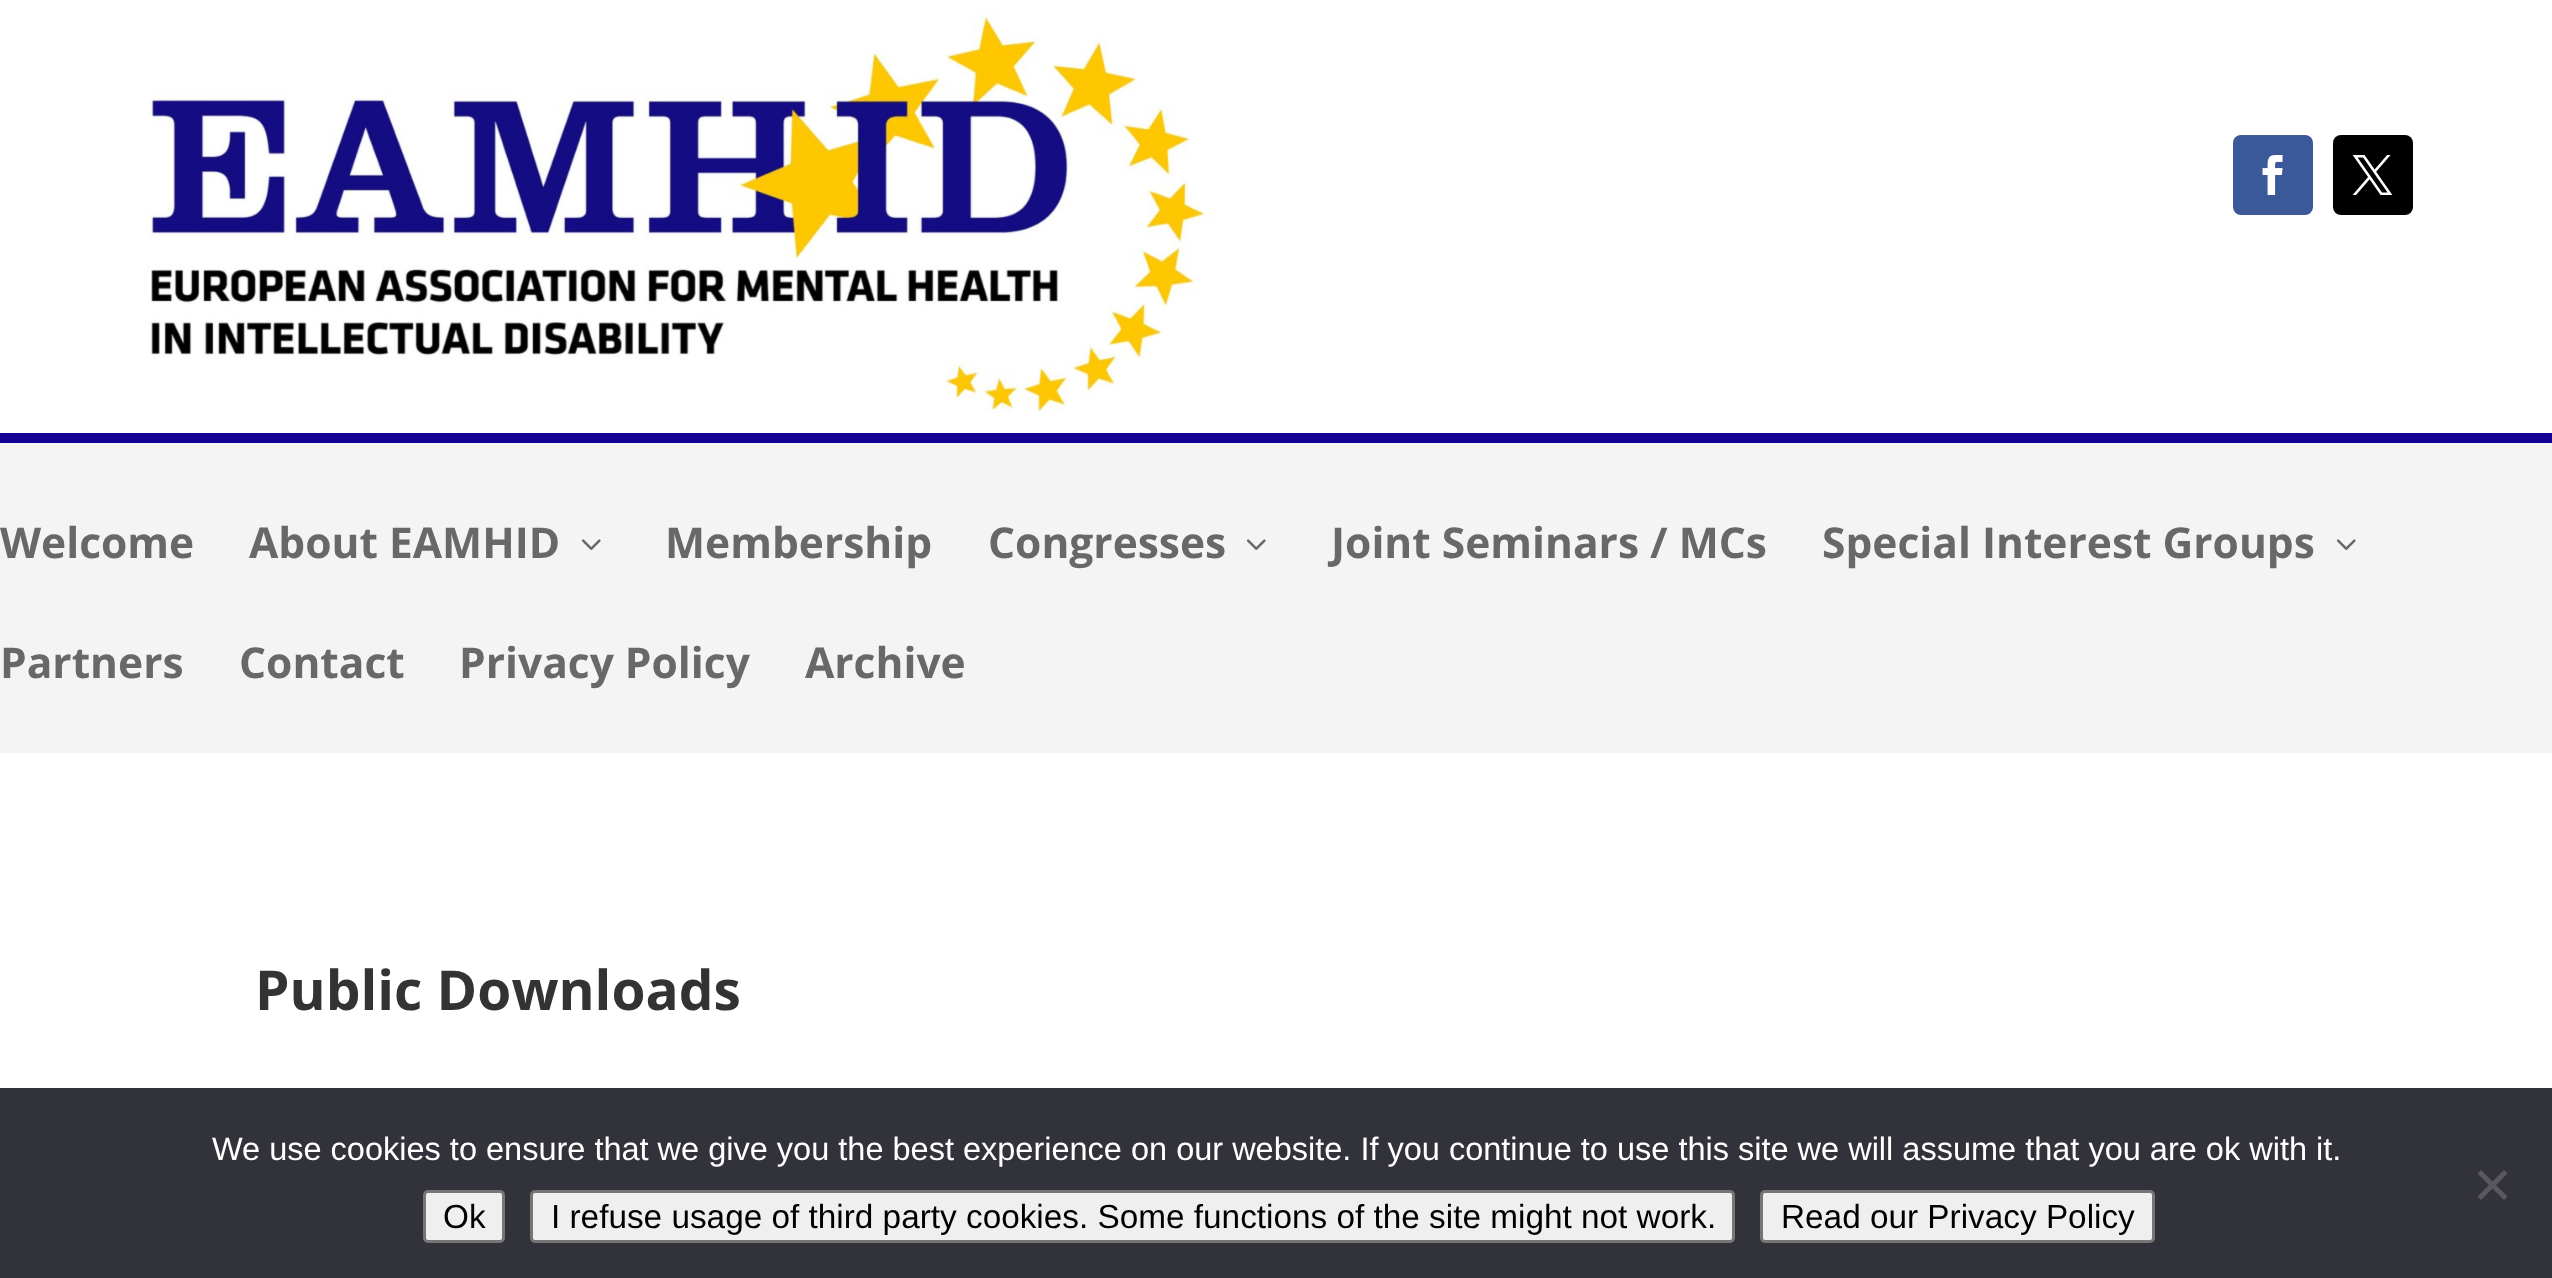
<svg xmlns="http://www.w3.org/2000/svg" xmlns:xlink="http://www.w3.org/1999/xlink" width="2552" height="1278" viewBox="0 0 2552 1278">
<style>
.cls-1{font:bold 42.5px Open Sans;fill:#686868}
.cls-2{font:bold 55px Open Sans;fill:#333333}
.cls-3{font:32.5px Liberation Sans;fill:#ffffff}
.cls-4{font:33.35px Liberation Sans;fill:#000000}
</style>
<rect width="100%" height="100%" fill="#ffffff"/>
<rect fill="#120193" x="0" y="433" width="2552" height="10"/>
<image xlink:href="image0.png" x="140" y="10" width="1075" height="403"/>
<rect fill="#3b5998" x="2233" y="135" width="80" height="80" rx="8"/>
<image xlink:href="image1.png" x="2262" y="155" width="21" height="40"/>
<rect fill="#000000" x="2333" y="135" width="80" height="80" rx="8"/>
<image xlink:href="image2.png" x="2352" y="155" width="41" height="40"/>
<rect fill="#f4f4f4" x="0" y="443" width="2552" height="310"/>
<image xlink:href="image3.png" x="581" y="539" width="20" height="11"/>
<image xlink:href="image3.png" x="1246" y="539" width="20" height="11"/>
<image xlink:href="image3.png" x="2336" y="539" width="20" height="11"/>
<rect fill="#32323a" x="0" y="1088" width="2552" height="190"/>
<path fill="#59595d" d="M2504 1170L2507.5 1173.5L2481 1200L2477.5 1196.5Z"/>
<path fill="#59595d" d="M2477.5 1173.5L2481 1170L2507.5 1196.5L2504 1200Z"/>
<rect fill="#efefef" stroke="#767676" stroke-width="3" x="424.5" y="1191.5" width="79" height="50" rx="3.5"/>
<rect fill="#efefef" stroke="#767676" stroke-width="3" x="531.5" y="1191.5" width="1202" height="50" rx="3.5"/>
<rect fill="#efefef" stroke="#767676" stroke-width="3" x="1761.5" y="1191.5" width="392" height="50" rx="3.5"/>
<text class="cls-1" x="0" y="558">Welcome</text>
<text class="cls-1" x="249" y="558">About EAMHID</text>
<text class="cls-1" x="665" y="558">Membership</text>
<text class="cls-1" x="988" y="558">Congresses</text>
<text class="cls-1" x="1331" y="558">Joint Seminars / MCs</text>
<text class="cls-1" x="1822" y="558">Special Interest Groups</text>
<text class="cls-1" x="0" y="678">Partners</text>
<text class="cls-1" x="239" y="678">Contact</text>
<text class="cls-1" x="459" y="678">Privacy Policy</text>
<text class="cls-1" x="805" y="678">Archive</text>
<text class="cls-2" x="255" y="1010">Public Downloads</text>
<text class="cls-3" x="212" y="1160">We use cookies to ensure that we give you the best experience on our website. If you continue to use this site we will assume that you are ok with it.</text>
<text class="cls-4" x="443" y="1228">Ok</text>
<text class="cls-4" x="551" y="1228">I refuse usage of third party cookies. Some functions of the site might not work.</text>
<text class="cls-4" x="1781" y="1228">Read our Privacy Policy</text>
</svg>
